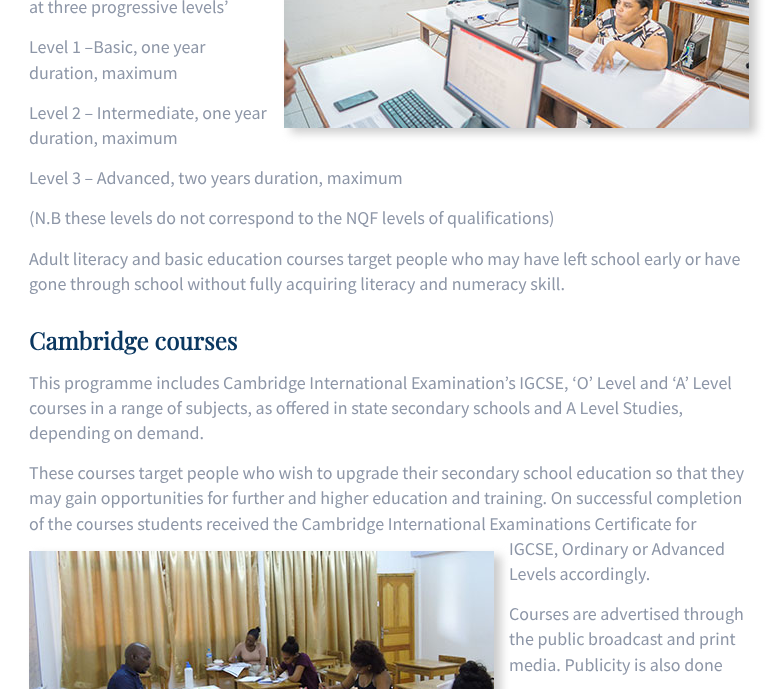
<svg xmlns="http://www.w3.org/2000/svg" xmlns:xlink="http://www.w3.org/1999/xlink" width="777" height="689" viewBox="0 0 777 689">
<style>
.cls-1{font:18px Source Sans Pro;fill:#8d96a7}
.cls-2{font:bold 24px Playfair Display;fill:#0a3760}
</style>
<rect width="100%" height="100%" fill="#ffffff"/>
<rect fill="#cccccc" filter="blur(5px)" x="291" y="-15" width="465" height="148"/>
<image xlink:href="image0.png" x="284" y="0" width="465" height="128"/>
<rect fill="#cccccc" filter="blur(5px)" x="36" y="556" width="465" height="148"/>
<image xlink:href="image1.png" x="29" y="551" width="465" height="138"/>
<text class="cls-1" x="29" y="13">at three progressive levels’</text>
<text class="cls-1"><tspan x="29" y="53">Level 1 –Basic, one year</tspan><tspan x="29" y="79">duration, maximum</tspan></text>
<text class="cls-1"><tspan x="29" y="119">Level 2 – Intermediate, one year</tspan><tspan x="29" y="144">duration, maximum</tspan></text>
<text class="cls-1" x="29" y="184">Level 3 – Advanced, two years duration, maximum</text>
<text class="cls-1" x="29" y="224">(N.B these levels do not correspond to the NQF levels of qualifications)</text>
<text class="cls-1"><tspan x="29" y="265">Adult literacy and basic education courses target people who may have left school early or have</tspan><tspan x="29" y="290">gone through school without fully acquiring literacy and numeracy skill.</tspan></text>
<text class="cls-2" x="29" y="350">Cambridge courses</text>
<text class="cls-1"><tspan x="29" y="389">This programme includes Cambridge International Examination’s IGCSE, ‘O’ Level and ‘A’ Level</tspan><tspan x="29" y="414">courses in a range of subjects, as offered in state secondary schools and A Level Studies,</tspan><tspan x="29" y="439">depending on demand.</tspan></text>
<text class="cls-1"><tspan x="29" y="479">These courses target people who wish to upgrade their secondary school education so that they</tspan><tspan x="29" y="504">may gain opportunities for further and higher education and training. On successful completion</tspan><tspan x="29" y="530">of the courses students received the Cambridge International Examinations Certificate for</tspan></text>
<text class="cls-1"><tspan x="509" y="555">IGCSE, Ordinary or Advanced</tspan><tspan x="509" y="580">Levels accordingly.</tspan></text>
<text class="cls-1"><tspan x="509" y="620">Courses are advertised through</tspan><tspan x="509" y="645">the public broadcast and print</tspan><tspan x="509" y="671">media. Publicity is also done</tspan></text>
</svg>
